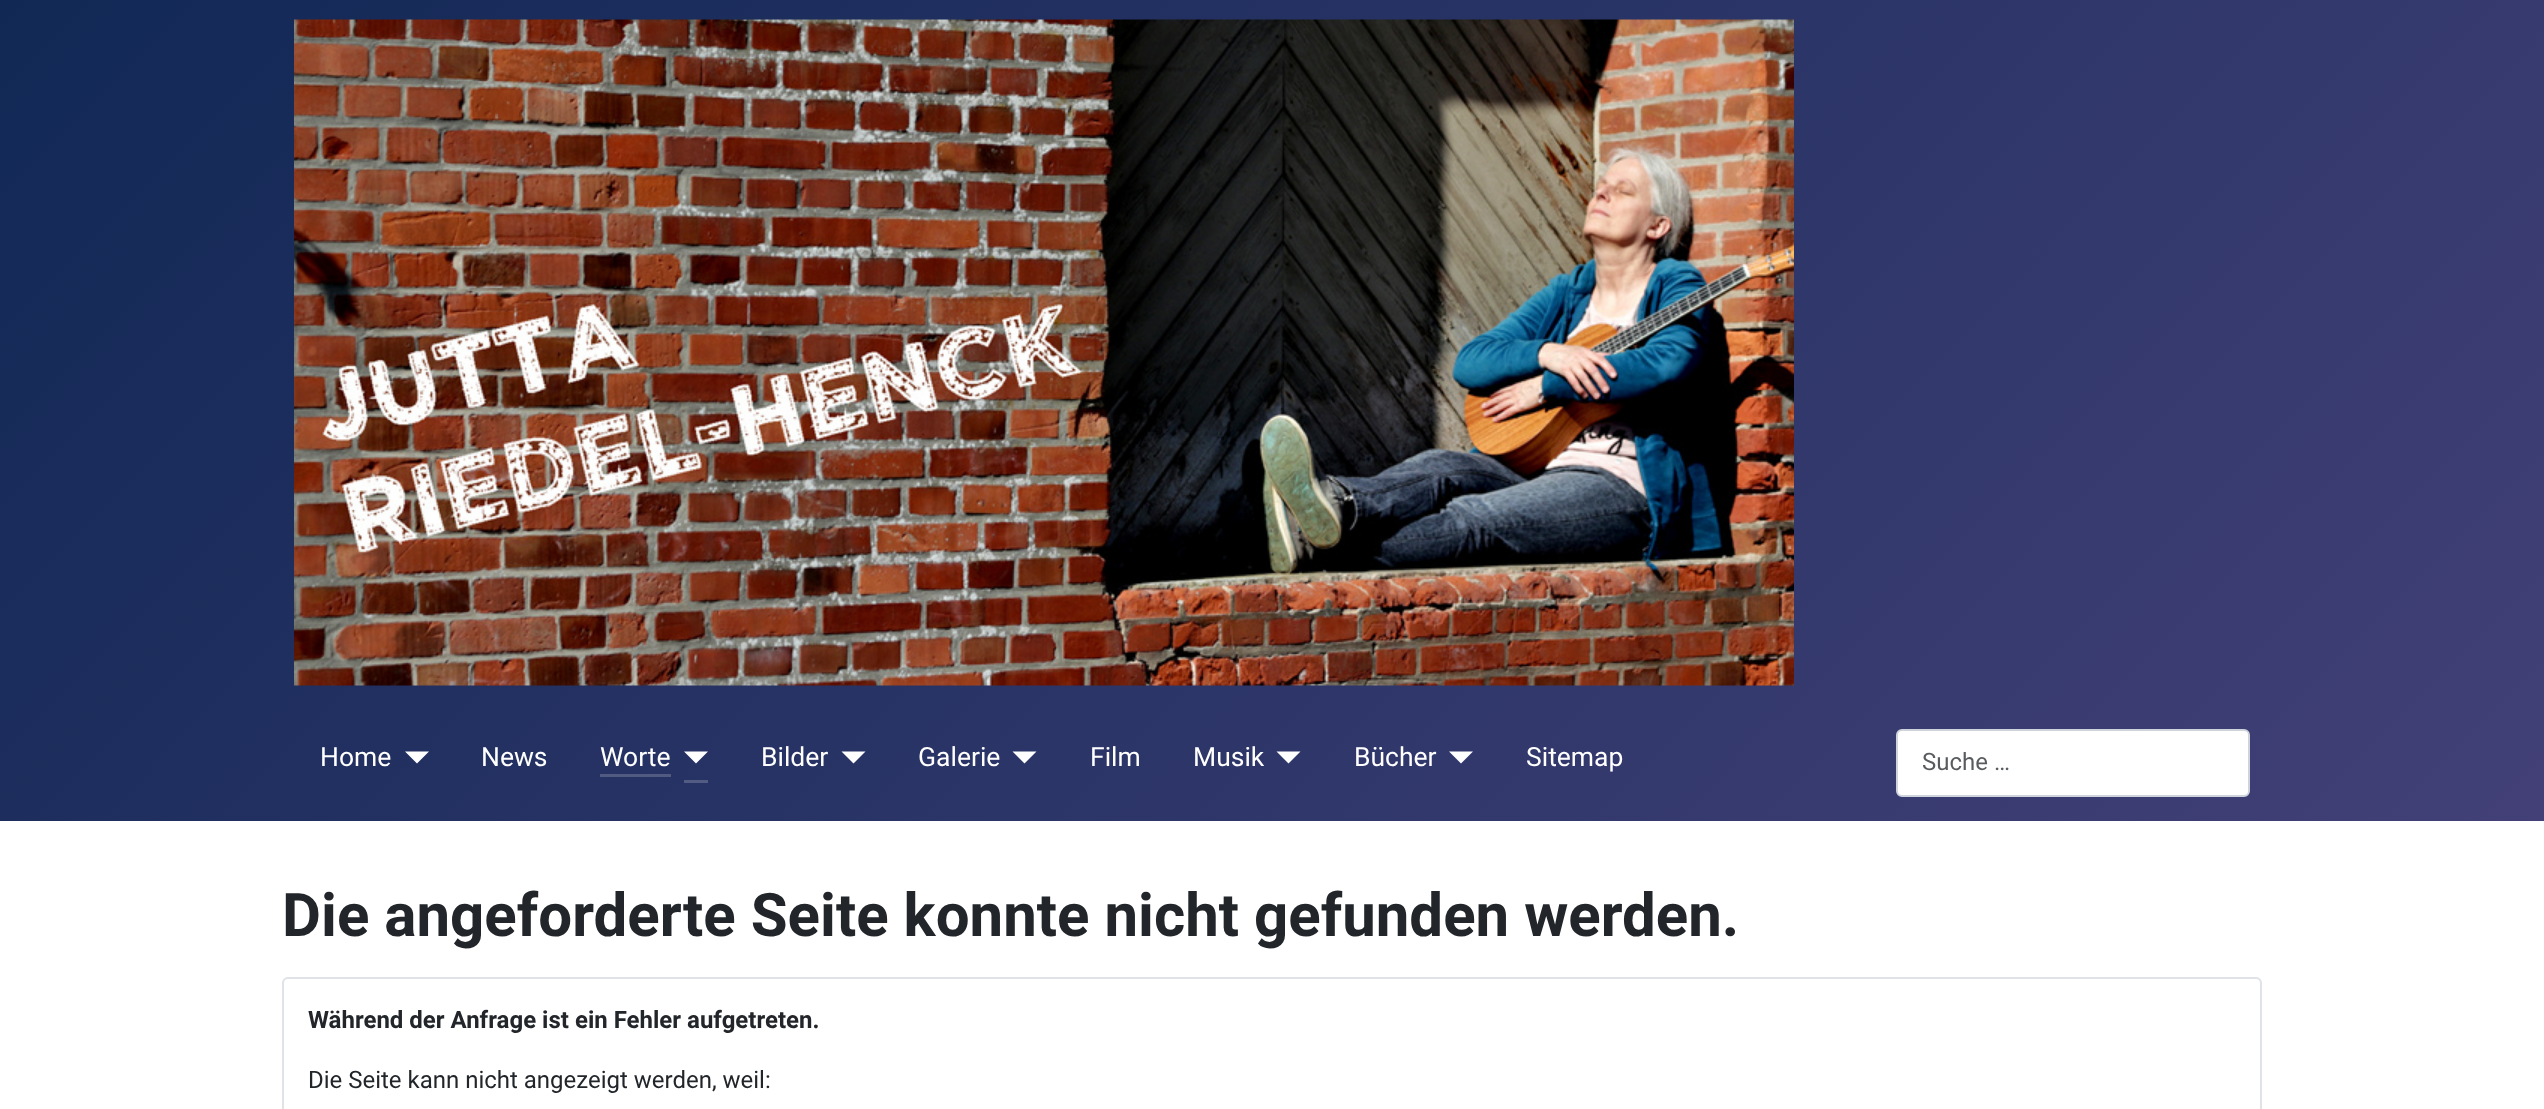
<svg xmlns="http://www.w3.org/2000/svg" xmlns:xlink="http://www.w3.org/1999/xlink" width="2544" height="1109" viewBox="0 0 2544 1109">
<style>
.cls-1{font:26.5px Roboto;fill:#ffffff}
.cls-2{font:24px Roboto;fill:#595c5f}
.cls-3{font:bold 60px Roboto;fill:#22262a}
.cls-4{font:bold 24px Roboto;fill:#22262a}
.cls-5{font:24px Roboto;fill:#22262a}
</style>
<defs>
<linearGradient id="g1" gradientUnits="userSpaceOnUse" x1="431" y1="-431" x2="2113" y2="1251"><stop offset="0" stop-color="#112855"/><stop offset="1" stop-color="#424077"/></linearGradient>
</defs>
<rect width="100%" height="100%" fill="#ffffff"/>
<rect fill="url(#g1)" x="0" y="0" width="2544" height="821"/>
<image xlink:href="image0.png" x="294" y="19" width="1500" height="667"/>
<path fill="#ffffff" d="M405 751.5H429L417 763.5Z"/>
<rect fill="#515b82" x="600" y="774" width="71" height="3"/>
<path fill="#ffffff" d="M684 751.5H708L696 763.5Z"/>
<rect fill="#525c83" x="684" y="780" width="24" height="3"/>
<path fill="#ffffff" d="M841.5 751.5H865.5L853.5 763.5Z"/>
<path fill="#ffffff" d="M1012.5 751.5H1036.5L1024.5 763.5Z"/>
<path fill="#ffffff" d="M1276.5 751.5H1300.5L1288.5 763.5Z"/>
<path fill="#ffffff" d="M1449 751.5H1473L1461 763.5Z"/>
<rect fill="#ffffff" stroke="#ced4da" stroke-width="2" x="1897" y="730" width="352" height="66" rx="5"/>
<rect fill="none" stroke="#dfe3e7" stroke-width="2" x="283" y="978" width="1978" height="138" rx="5"/>
<text class="cls-1" x="320" y="766">Home</text>
<text class="cls-1" x="481" y="766">News</text>
<text class="cls-1" x="600" y="766">Worte</text>
<text class="cls-1" x="761" y="766">Bilder</text>
<text class="cls-1" x="918" y="766">Galerie</text>
<text class="cls-1" x="1090" y="766">Film</text>
<text class="cls-1" x="1193" y="766">Musik</text>
<text class="cls-1" x="1354" y="766">Bücher</text>
<text class="cls-1" x="1526" y="766">Sitemap</text>
<text class="cls-2" x="1922" y="770">Suche …</text>
<text class="cls-3" x="282" y="936">Die angeforderte Seite konnte nicht gefunden werden.</text>
<text class="cls-4" x="308" y="1028">Während der Anfrage ist ein Fehler aufgetreten.</text>
<text class="cls-5" x="308" y="1088">Die Seite kann nicht angezeigt werden, weil:</text>
</svg>
